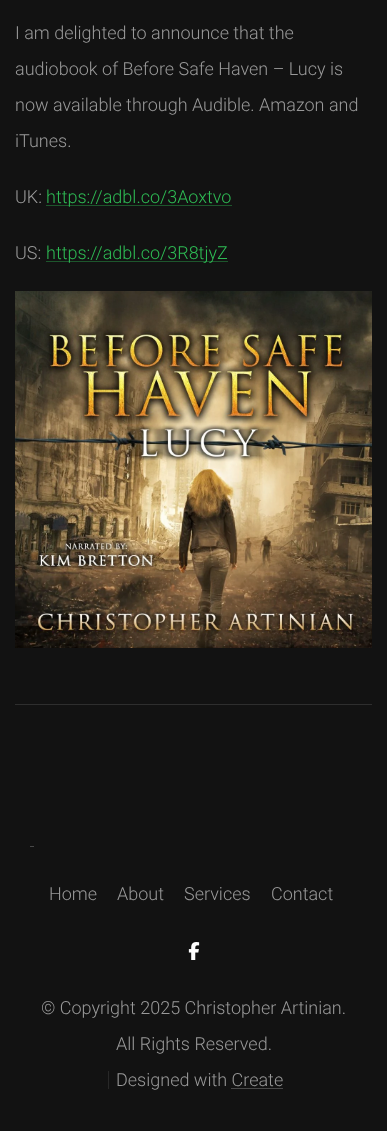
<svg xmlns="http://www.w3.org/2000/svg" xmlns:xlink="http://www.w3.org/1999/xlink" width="387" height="1131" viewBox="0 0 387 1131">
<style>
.cls-1{font:300 18px Roboto;fill:#999999}
.cls-2{font:300 18px Roboto;fill:#2ebb54}
</style>
<rect width="100%" height="100%" fill="#121212"/>
<rect fill="#2e2e2e" x="15" y="704" width="357" height="1"/>
<rect fill="#1d562c" x="46" y="205" width="186" height="1"/>
<rect fill="#1d562c" x="46" y="261" width="182" height="1"/>
<image xlink:href="image0.png" x="15" y="291" width="357" height="357"/>
<rect fill="#484848" x="30" y="846" width="4" height="1"/>
<image xlink:href="image1.png" x="188" y="942" width="12" height="18"/>
<rect fill="#282828" x="108" y="1071" width="1" height="18"/>
<text class="cls-1" x="15" y="39">I am delighted to announce that the</text>
<text class="cls-1" x="15" y="75">audiobook of Before Safe Haven – Lucy is</text>
<text class="cls-1" x="15" y="111">now available through Audible. Amazon and</text>
<text class="cls-1" x="15" y="147">iTunes.</text>
<text class="cls-1" x="15" y="203">UK:</text>
<text class="cls-2" x="46" y="203">https://adbl.co/3Aoxtvo</text>
<text class="cls-1" x="15" y="259">US:</text>
<text class="cls-2" x="46" y="259">https://adbl.co/3R8tjyZ</text>
<text class="cls-1" x="49" y="900">Home</text>
<text class="cls-1" x="117" y="900">About</text>
<text class="cls-1" x="184" y="900">Services</text>
<text class="cls-1" x="271" y="900">Contact</text>
<text class="cls-1" x="41" y="1014">© Copyright 2025 Christopher Artinian.</text>
<text class="cls-1" x="116" y="1050">All Rights Reserved.</text>
<text class="cls-1" x="116" y="1086">Designed with Create</text>
<rect fill="#484848" x="231" y="1088" width="52" height="1"/>
</svg>
